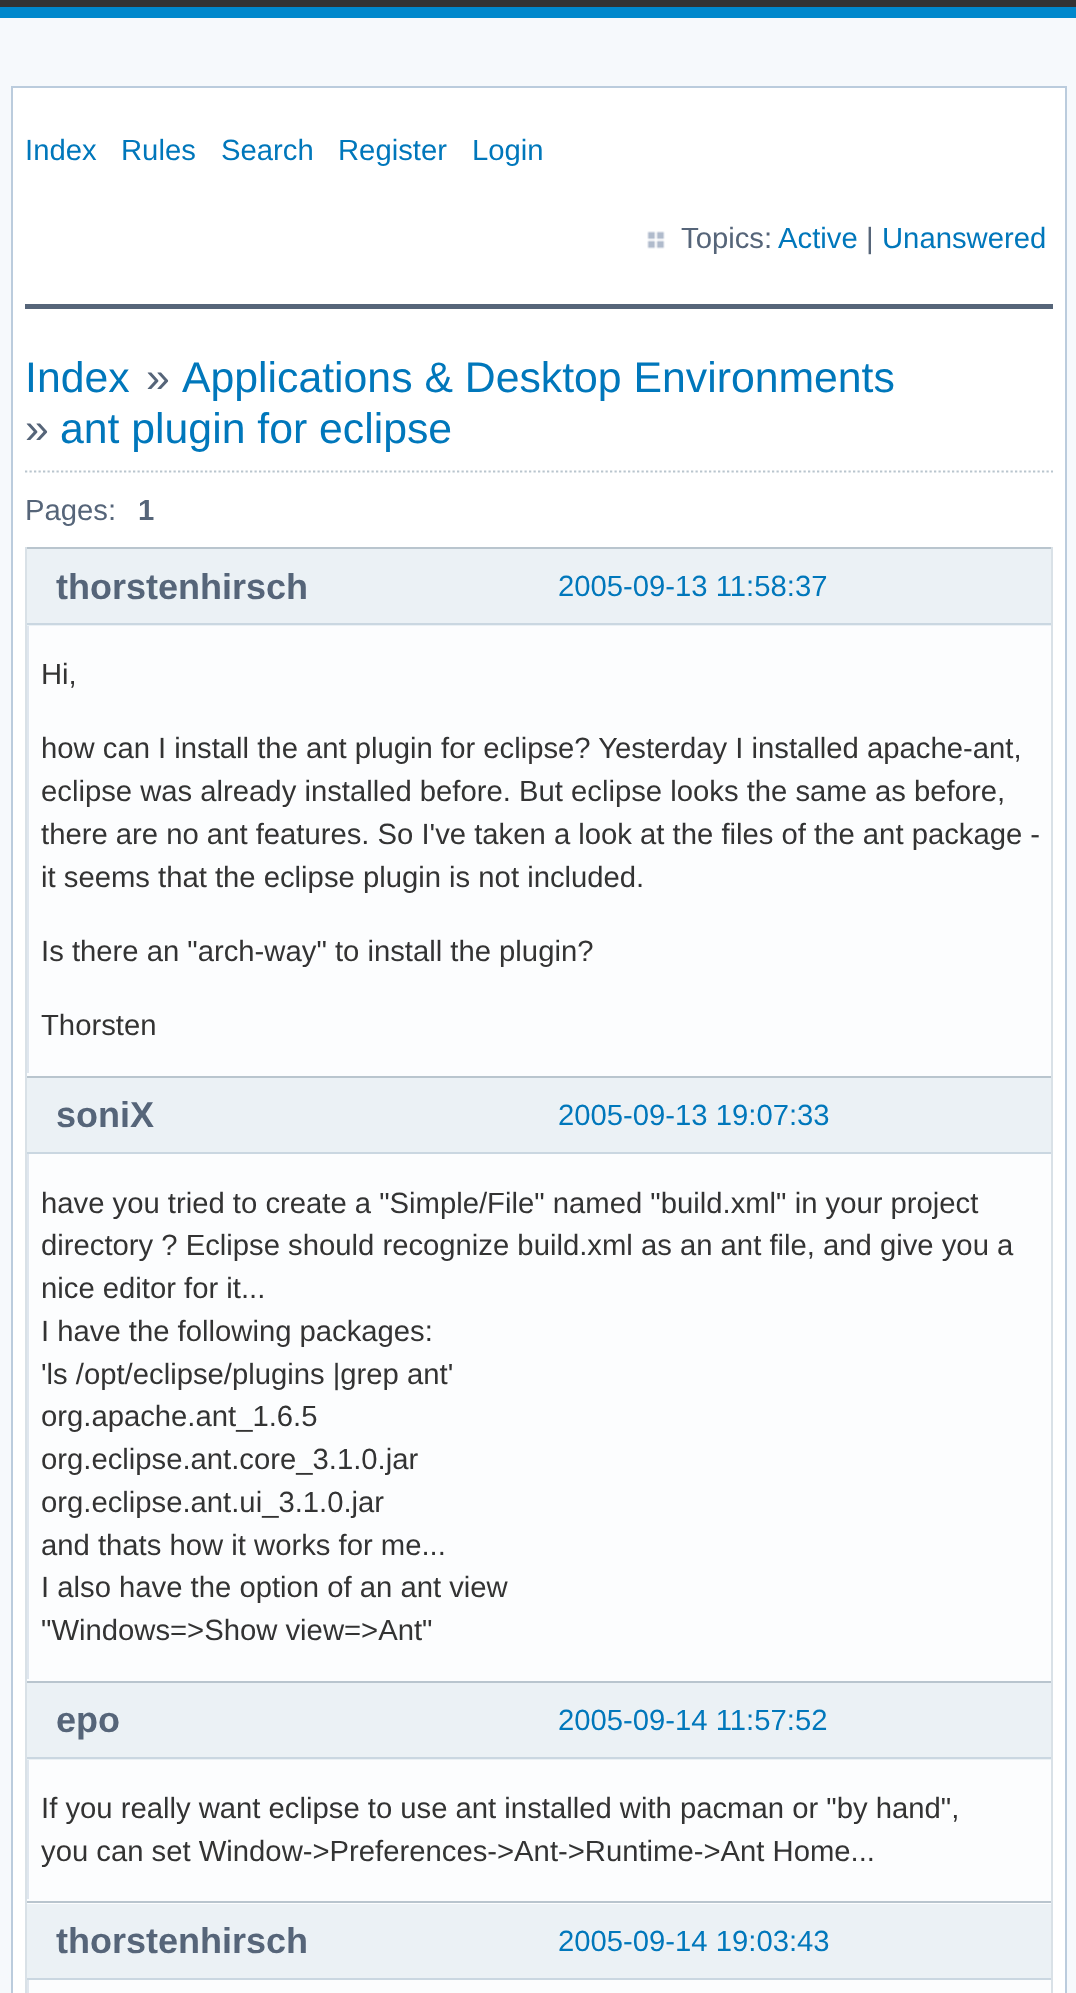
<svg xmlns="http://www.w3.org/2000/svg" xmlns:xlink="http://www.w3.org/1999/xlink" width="1076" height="1993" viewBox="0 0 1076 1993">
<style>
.cls-1{font:29.25px Liberation Sans;fill:#0077bb}
.cls-2{font:29.25px Liberation Sans;fill:#566579}
.cls-3{font:42.75px Liberation Sans;fill:#0077bb}
.cls-4{font:42.75px Liberation Sans;fill:#566579}
.cls-5{font:bold 29.25px Liberation Sans;fill:#566579}
.cls-6{font:bold 36px Liberation Sans;fill:#566579}
.cls-7{font:29.25px Liberation Sans;fill:#333333}
</style>
<rect width="100%" height="100%" fill="#f6f9fc"/>
<rect fill="#333333" x="0" y="0" width="1076" height="7"/>
<rect fill="#0088cc" x="0" y="7" width="1076" height="11"/>
<rect fill="#ffffff" stroke="#bbccdd" stroke-width="2" x="12" y="87" width="1054" height="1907"/>
<image xlink:href="image0.png" x="647" y="231" width="18" height="18"/>
<rect fill="#566579" x="25" y="304" width="1028" height="5"/>
<path fill="none" stroke="#b9c5ce" stroke-width="2.2" stroke-dasharray="2.25 2.25" d="M25 471.5H1053"/>
<rect fill="#fcfdfe" x="27" y="626" width="1024" height="450"/>
<rect fill="#b9c5ce" x="25" y="547" width="1028" height="2"/>
<rect fill="#d9e1e7" x="1051" y="547" width="2" height="531"/>
<rect fill="#d9e1e7" x="25" y="547" width="2" height="531"/>
<rect fill="#dfe6ee" x="27" y="626" width="2" height="447"/>
<rect fill="#ebf1f5" x="27" y="549" width="1024" height="77"/>
<rect fill="#cad7e1" x="27" y="623" width="1024" height="2"/>
<rect fill="#fcfdfe" x="27" y="1154" width="1024" height="527"/>
<rect fill="#b9c5ce" x="25" y="1076" width="1028" height="2"/>
<rect fill="#d9e1e7" x="1051" y="1076" width="2" height="607"/>
<rect fill="#d9e1e7" x="25" y="1076" width="2" height="607"/>
<rect fill="#dfe6ee" x="27" y="1154" width="2" height="525"/>
<rect fill="#ebf1f5" x="27" y="1078" width="1024" height="74"/>
<rect fill="#cad7e1" x="27" y="1152" width="1024" height="2"/>
<rect fill="#fcfdfe" x="27" y="1760" width="1024" height="141"/>
<rect fill="#b9c5ce" x="25" y="1681" width="1028" height="2"/>
<rect fill="#d9e1e7" x="1051" y="1681" width="2" height="223"/>
<rect fill="#d9e1e7" x="25" y="1681" width="2" height="223"/>
<rect fill="#ebf1f5" x="27" y="1683" width="1024" height="77"/>
<rect fill="#cad7e1" x="27" y="1757" width="1024" height="2"/>
<rect fill="#dfe6ee" x="27" y="1760" width="2" height="139"/>
<rect fill="#fcfdfe" x="27" y="1903" width="1024" height="90"/>
<rect fill="#b9c5ce" x="25" y="1901" width="1028" height="2"/>
<rect fill="#d9e1e7" x="1051" y="1901" width="2" height="92"/>
<rect fill="#d9e1e7" x="25" y="1901" width="2" height="92"/>
<rect fill="#dfe6ee" x="27" y="1980" width="2" height="13"/>
<rect fill="#ebf1f5" x="27" y="1904" width="1024" height="74"/>
<rect fill="#cad7e1" x="27" y="1978" width="1024" height="2"/>
<text class="cls-1" x="25" y="160">Index</text>
<text class="cls-1" x="121" y="160">Rules</text>
<text class="cls-1" x="221" y="160">Search</text>
<text class="cls-1" x="338" y="160">Register</text>
<text class="cls-1" x="472" y="160">Login</text>
<text class="cls-2" x="681" y="248">Topics:</text>
<text class="cls-1" x="778" y="248">Active</text>
<text class="cls-2" x="866" y="248">|</text>
<text class="cls-1" x="882" y="248">Unanswered</text>
<text class="cls-3" x="25" y="392">Index</text>
<text class="cls-4" x="146" y="392">»</text>
<text class="cls-3" x="182" y="392">Applications &amp; Desktop Environments</text>
<text class="cls-4" x="25" y="443">»</text>
<text class="cls-3" x="60" y="443">ant plugin for eclipse</text>
<text class="cls-2" x="25" y="520">Pages:</text>
<text class="cls-5" x="138" y="520">1</text>
<text class="cls-6" x="56" y="599">thorstenhirsch</text>
<text class="cls-7" x="41" y="684">Hi,</text>
<text class="cls-7"><tspan x="41" y="758">how can I install the ant plugin for eclipse? Yesterday I installed apache-ant,</tspan><tspan x="41" y="801">eclipse was already installed before. But eclipse looks the same as before,</tspan><tspan x="41" y="844">there are no ant features. So I've taken a look at the files of the ant package -</tspan><tspan x="41" y="887">it seems that the eclipse plugin is not included.</tspan></text>
<text class="cls-7" x="41" y="961">Is there an "arch-way" to install the plugin?</text>
<text class="cls-7" x="41" y="1035">Thorsten</text>
<text class="cls-1" x="558" y="596">2005-09-13 11:58:37</text>
<text class="cls-6" x="56" y="1127">soniX</text>
<text class="cls-7"><tspan x="41" y="1213">have you tried to create a "Simple/File" named "build.xml" in your project</tspan><tspan x="41" y="1255">directory ? Eclipse should recognize build.xml as an ant file, and give you a</tspan><tspan x="41" y="1298">nice editor for it...</tspan><tspan x="41" y="1341">I have the following packages:</tspan><tspan x="41" y="1384">'ls /opt/eclipse/plugins |grep ant'</tspan><tspan x="41" y="1426">org.apache.ant_1.6.5</tspan><tspan x="41" y="1469">org.eclipse.ant.core_3.1.0.jar</tspan><tspan x="41" y="1512">org.eclipse.ant.ui_3.1.0.jar</tspan><tspan x="41" y="1555">and thats how it works for me...</tspan><tspan x="41" y="1597">I also have the option of an ant view</tspan><tspan x="41" y="1640">"Windows=&gt;Show view=&gt;Ant"</tspan></text>
<text class="cls-1" x="558" y="1125">2005-09-13 19:07:33</text>
<text class="cls-1" x="558" y="1730">2005-09-14 11:57:52</text>
<text class="cls-6" x="56" y="1732">epo</text>
<text class="cls-7"><tspan x="41" y="1818">If you really want eclipse to use ant installed with pacman or "by hand",</tspan><tspan x="41" y="1861">you can set Window-&gt;Preferences-&gt;Ant-&gt;Runtime-&gt;Ant Home...</tspan></text>
<text class="cls-6" x="56" y="1953">thorstenhirsch</text>
<text class="cls-1" x="558" y="1951">2005-09-14 19:03:43</text>
</svg>
